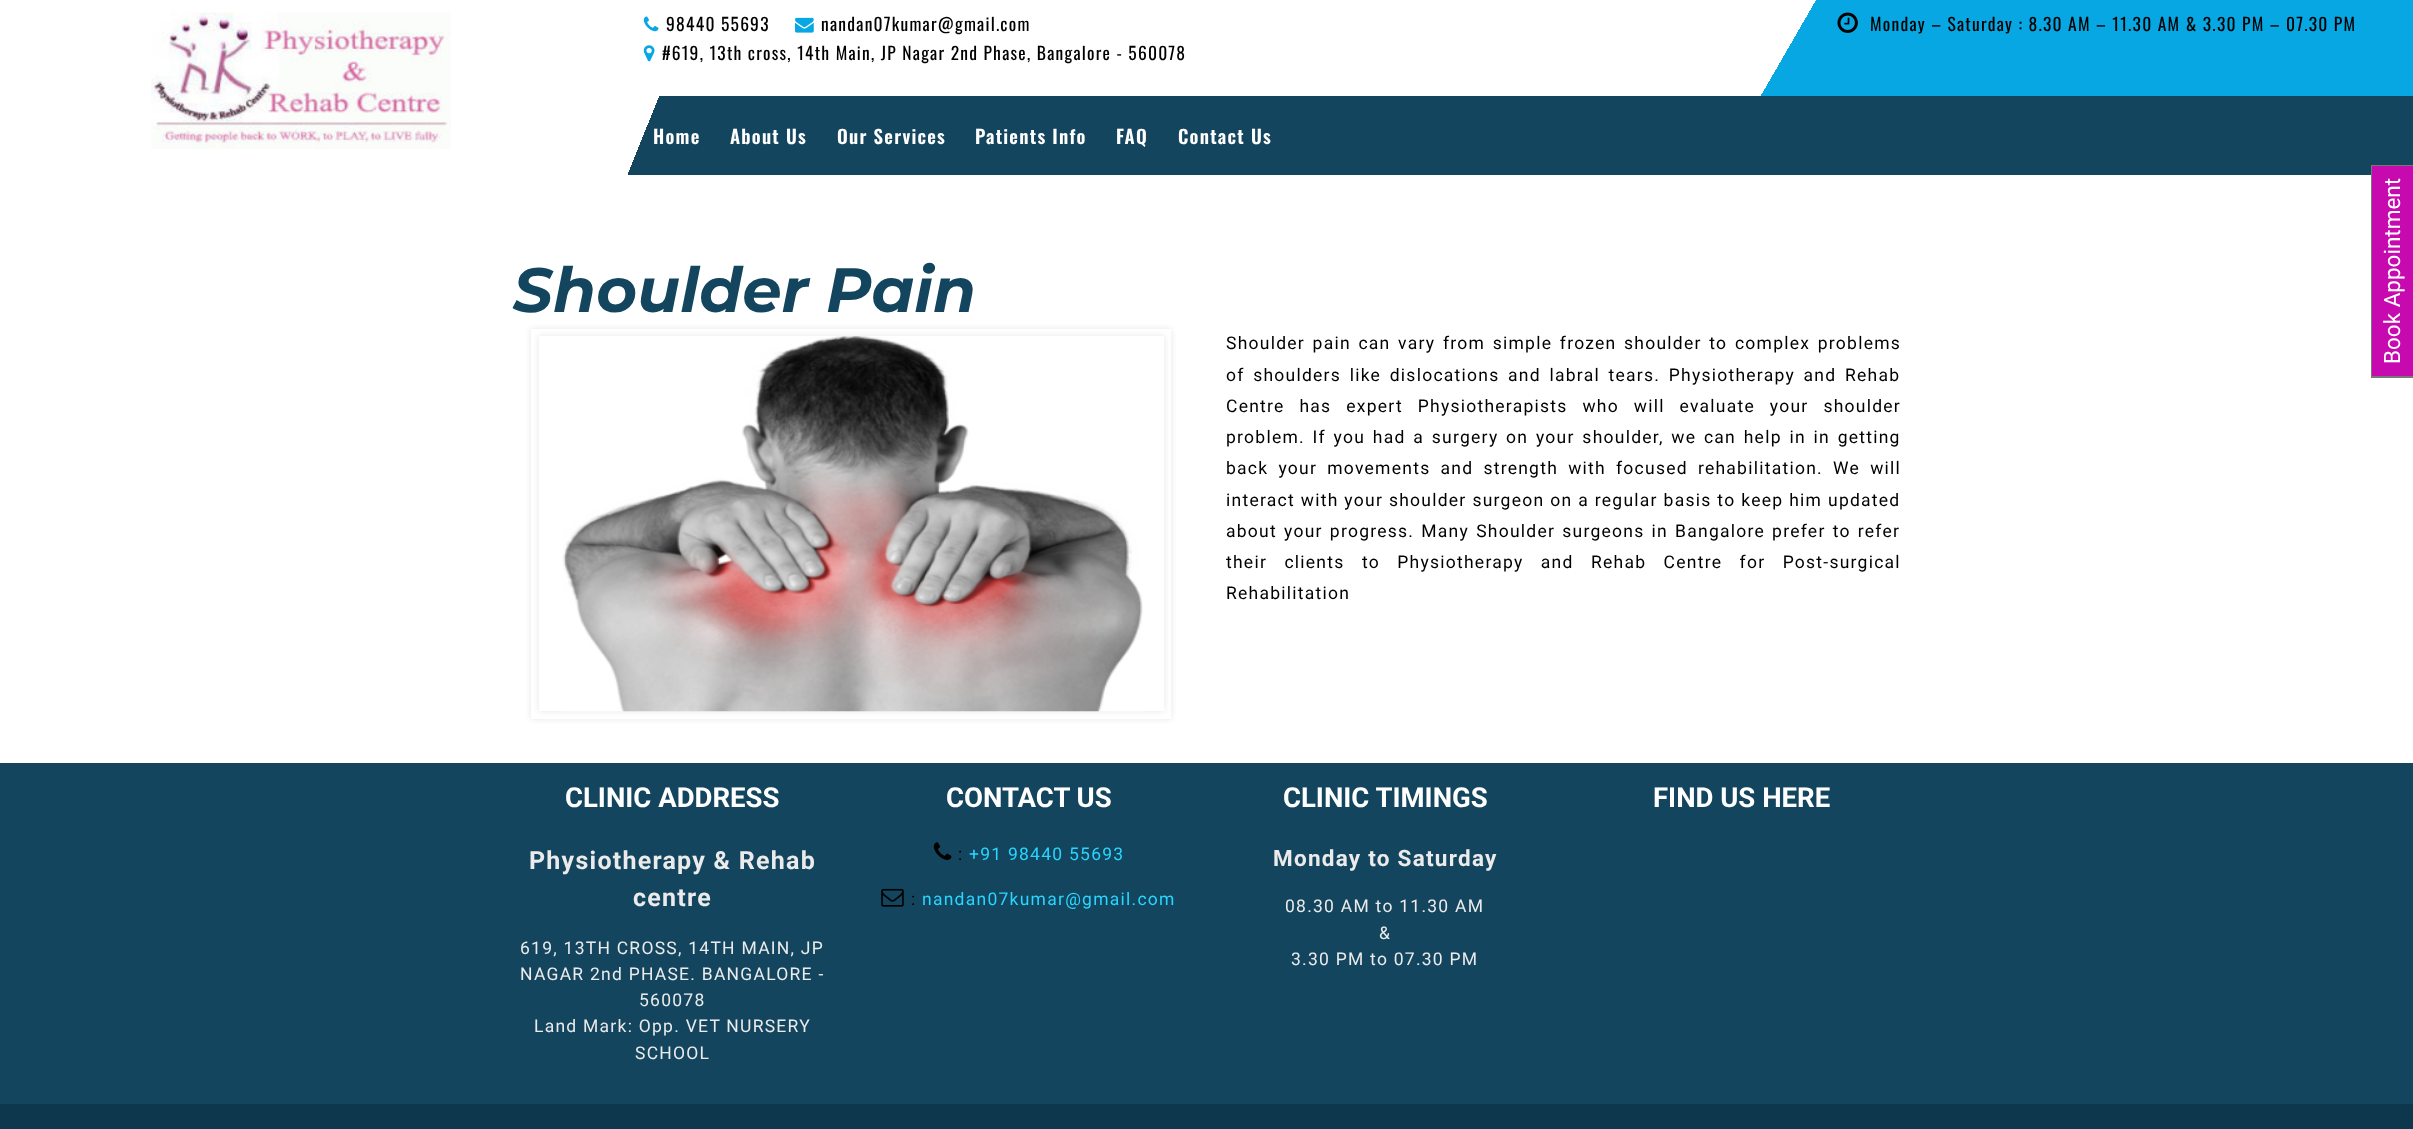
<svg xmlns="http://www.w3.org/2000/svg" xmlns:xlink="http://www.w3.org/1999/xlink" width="2413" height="1129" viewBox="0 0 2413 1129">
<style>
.cls-1{font:17.5px Oswald;letter-spacing:1.25px;fill:#000000}
.cls-2{font:600 18.75px Oswald;letter-spacing:1.25px;fill:#ffffff}
.cls-3{font:italic bold 62.5px Montserrat;fill:#13455e}
.cls-4{font:17.5px Roboto;letter-spacing:1.25px;fill:#000000}
.cls-5{font:22.5px Roboto;fill:#ffffff}
.cls-6{font:bold 27.5px Roboto;fill:#ffffff}
.cls-7{font:bold 25px Roboto;letter-spacing:1.25px;fill:#ebebeb}
.cls-8{font:17.5px Roboto;letter-spacing:1.25px;fill:#ebebeb}
.cls-9{font:17.5px Roboto;letter-spacing:1.25px;fill:#28d6ff}
.cls-10{font:bold 22.5px Roboto;letter-spacing:1.25px;fill:#ebebeb}
</style>
<defs>
<linearGradient id="g1" gradientUnits="userSpaceOnUse" x1="809" y1="-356" x2="2208" y2="452"><stop offset="0.65" stop-color="#ffffff"/><stop offset="0.65" stop-color="#07a7e3"/></linearGradient>
<linearGradient id="g2" gradientUnits="userSpaceOnUse" x1="717" y1="-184" x2="2300" y2="455"><stop offset="0.03" stop-color="#ffffff"/><stop offset="0.03" stop-color="#13455e"/></linearGradient>
<clipPath id="clip1"><path d="M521 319H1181V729H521ZM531 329H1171V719H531Z" clip-rule="evenodd"/></clipPath>
<clipPath id="clip2"><path d="M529 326H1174V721H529ZM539 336H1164V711H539Z" clip-rule="evenodd"/></clipPath>
</defs>
<rect width="100%" height="100%" fill="#ffffff"/>
<image xlink:href="image0.png" x="151" y="12" width="300" height="137"/>
<rect fill="url(#g1)" x="1761" y="0" width="652" height="96"/>
<image xlink:href="image1.png" x="643" y="16" width="16" height="16"/>
<image xlink:href="image2.png" x="795" y="17" width="19" height="16"/>
<image xlink:href="image3.png" x="643" y="45" width="12" height="17"/>
<image xlink:href="image4.png" x="1837" y="12" width="21" height="21"/>
<rect fill="url(#g2)" x="628" y="96" width="1785" height="79"/>
<g clip-path="url(#clip1)">
<rect fill="#000000" fill-opacity="0.1" filter="blur(3px)" x="531" y="329" width="640" height="390"/>
</g>
<g clip-path="url(#clip2)">
<rect fill="#000000" fill-opacity="0.1" filter="blur(3px)" x="539" y="336" width="625" height="375"/>
</g>
<image xlink:href="image5.png" x="562" y="336" width="581" height="376"/>
<rect fill="#c709b0" x="2372" y="166" width="41" height="210"/>
<rect fill="#777777" x="2371" y="165" width="1" height="213"/>
<rect fill="#777777" x="2371" y="165" width="42" height="1"/>
<rect fill="#777777" x="2371" y="376" width="42" height="2"/>
<rect fill="#13455e" x="0" y="763" width="2413" height="341"/>
<image xlink:href="image6.png" x="933" y="842" width="19" height="18"/>
<image xlink:href="image7.png" x="881" y="888" width="23" height="19"/>
<rect fill="#0d374c" x="0" y="1104" width="2413" height="25"/>
<text class="cls-1" x="666" y="31">98440 55693</text>
<text class="cls-1" x="821" y="31">nandan07kumar@gmail.com</text>
<text class="cls-1" x="662" y="60">#619, 13th cross, 14th Main, JP Nagar 2nd Phase, Bangalore - 560078</text>
<text class="cls-1" x="1870" y="31">Monday – Saturday : 8.30 AM – 11.30 AM &amp; 3.30 PM – 07.30 PM</text>
<text class="cls-2" x="653" y="144">Home</text>
<text class="cls-2" x="730" y="144">About Us</text>
<text class="cls-2" x="837" y="144">Our Services</text>
<text class="cls-2" x="975" y="144">Patients Info</text>
<text class="cls-2" x="1116" y="144">FAQ</text>
<text class="cls-2" x="1178" y="144">Contact Us</text>
<text class="cls-3" x="513" y="312">Shoulder Pain</text>
<text class="cls-4"><tspan x="1226" y="349" word-spacing="2">Shoulder pain can vary from simple frozen shoulder to complex problems</tspan><tspan x="1226" y="381" word-spacing="3">of shoulders like dislocations and labral tears. Physiotherapy and Rehab</tspan><tspan x="1226" y="412" word-spacing="9.25">Centre has expert Physiotherapists who will evaluate your shoulder</tspan><tspan x="1226" y="443" word-spacing="2.1">problem. If you had a surgery on your shoulder, we can help in in getting</tspan><tspan x="1226" y="474" word-spacing="4.5">back your movements and strength with focused rehabilitation. We will</tspan><tspan x="1226" y="506" word-spacing="0.25">interact with your shoulder surgeon on a regular basis to keep him updated</tspan><tspan x="1226" y="537" word-spacing="1.5">about your progress. Many Shoulder surgeons in Bangalore prefer to refer</tspan><tspan x="1226" y="568" word-spacing="11.75">their clients to Physiotherapy and Rehab Centre for Post-surgical</tspan><tspan x="1226" y="599">Rehabilitation</tspan></text>
<text class="cls-5" x="2400" y="364" transform="rotate(-90 2400 364)">Book Appointment</text>
<text class="cls-6" x="565" y="807">CLINIC ADDRESS</text>
<text class="cls-7" x="529" y="869">Physiotherapy &amp; Rehab</text>
<text class="cls-7" x="633" y="906">centre</text>
<text class="cls-8"><tspan x="520" y="954">619, 13TH CROSS, 14TH MAIN, JP</tspan><tspan x="520" y="980">NAGAR 2nd PHASE. BANGALORE -</tspan></text>
<text class="cls-8" x="639" y="1006">560078</text>
<text class="cls-8" x="534" y="1032">Land Mark: Opp. VET NURSERY</text>
<text class="cls-8" x="635" y="1059">SCHOOL</text>
<text class="cls-6" x="946" y="807">CONTACT US</text>
<text class="cls-4" x="958" y="860">:</text>
<text class="cls-9" x="969" y="860">+91 98440 55693</text>
<text class="cls-4" x="911" y="905">:</text>
<text class="cls-9" x="922" y="905">nandan07kumar@gmail.com</text>
<text class="cls-6" x="1283" y="807">CLINIC TIMINGS</text>
<text class="cls-10" x="1273" y="866">Monday to Saturday</text>
<text class="cls-8" x="1285" y="912">08.30 AM to 11.30 AM</text>
<text class="cls-8" x="1379" y="939">&amp;</text>
<text class="cls-8" x="1291" y="965">3.30 PM to 07.30 PM</text>
<text class="cls-6" x="1653" y="807">FIND US HERE</text>
</svg>
